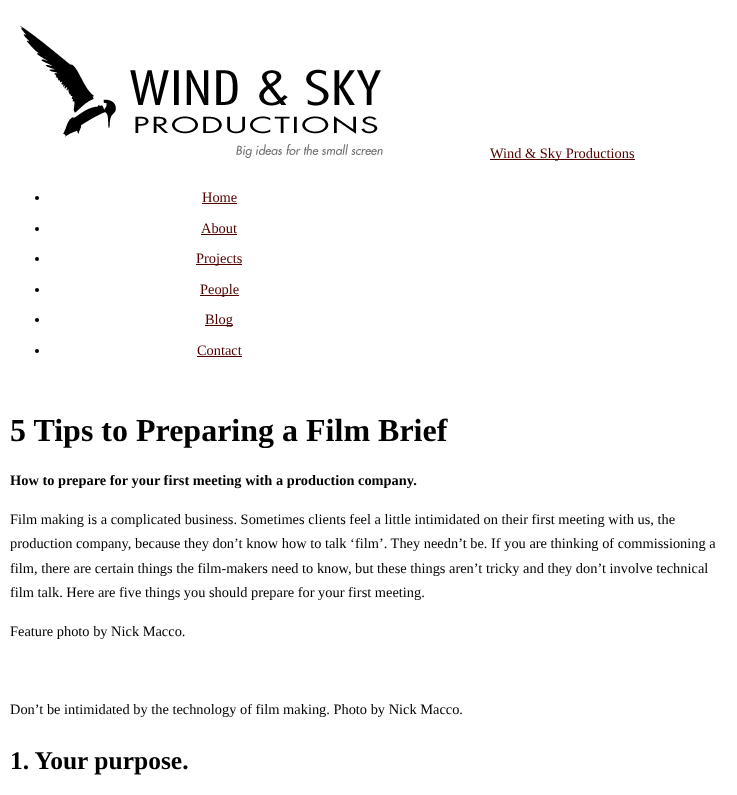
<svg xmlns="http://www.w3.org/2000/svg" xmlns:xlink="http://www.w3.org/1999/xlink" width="737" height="795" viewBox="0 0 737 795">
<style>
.cls-1{font:14.4px Liberation Serif;fill:#510000}
.cls-2{font:bold 32px Liberation Serif;fill:#000000}
.cls-3{font:bold 14.4px Liberation Serif;fill:#000000}
.cls-4{font:14.4px Liberation Serif;fill:#000000}
.cls-5{font:bold 25.5px Liberation Serif;fill:#000000}
</style>
<rect width="100%" height="100%" fill="#ffffff"/>
<image xlink:href="image0.png" x="20" y="25" width="363" height="133"/>
<rect fill="#510000" x="490" y="159" width="145" height="1"/>
<circle fill="#000000" cx="37" cy="198" r="2"/>
<rect fill="#510000" x="202" y="203" width="35" height="1"/>
<circle fill="#000000" cx="37" cy="229" r="2"/>
<rect fill="#510000" x="201" y="234" width="36" height="1"/>
<circle fill="#000000" cx="37" cy="259" r="2"/>
<rect fill="#510000" x="196" y="264" width="46" height="1"/>
<circle fill="#000000" cx="37" cy="290" r="2"/>
<rect fill="#510000" x="200" y="295" width="39" height="1"/>
<circle fill="#000000" cx="37" cy="320" r="2"/>
<rect fill="#510000" x="205" y="325" width="28" height="1"/>
<circle fill="#000000" cx="37" cy="351" r="2"/>
<rect fill="#510000" x="197" y="356" width="45" height="1"/>
<text class="cls-1" x="490" y="158">Wind &amp; Sky Productions</text>
<text class="cls-1" x="202" y="202">Home</text>
<text class="cls-1" x="201" y="233">About</text>
<text class="cls-1" x="196" y="263">Projects</text>
<text class="cls-1" x="200" y="294">People</text>
<text class="cls-1" x="205" y="324">Blog</text>
<text class="cls-1" x="197" y="355">Contact</text>
<text class="cls-2" x="10" y="441">5 Tips to Preparing a Film Brief</text>
<text class="cls-3" x="10" y="485">How to prepare for your first meeting with a production company.</text>
<text class="cls-4"><tspan x="10" y="524">Film making is a complicated business. Sometimes clients feel a little intimidated on their first meeting with us, the</tspan><tspan x="10" y="548">production company, because they don’t know how to talk ‘film’. They needn’t be. If you are thinking of commissioning a</tspan><tspan x="10" y="573">film, there are certain things the film-makers need to know, but these things aren’t tricky and they don’t involve technical</tspan><tspan x="10" y="597">film talk. Here are five things you should prepare for your first meeting.</tspan></text>
<text class="cls-4" x="10" y="636">Feature photo by Nick Macco.</text>
<text class="cls-4" x="10" y="714">Don’t be intimidated by the technology of film making. Photo by Nick Macco.</text>
<text class="cls-5" x="10" y="769">1. Your purpose.</text>
</svg>
